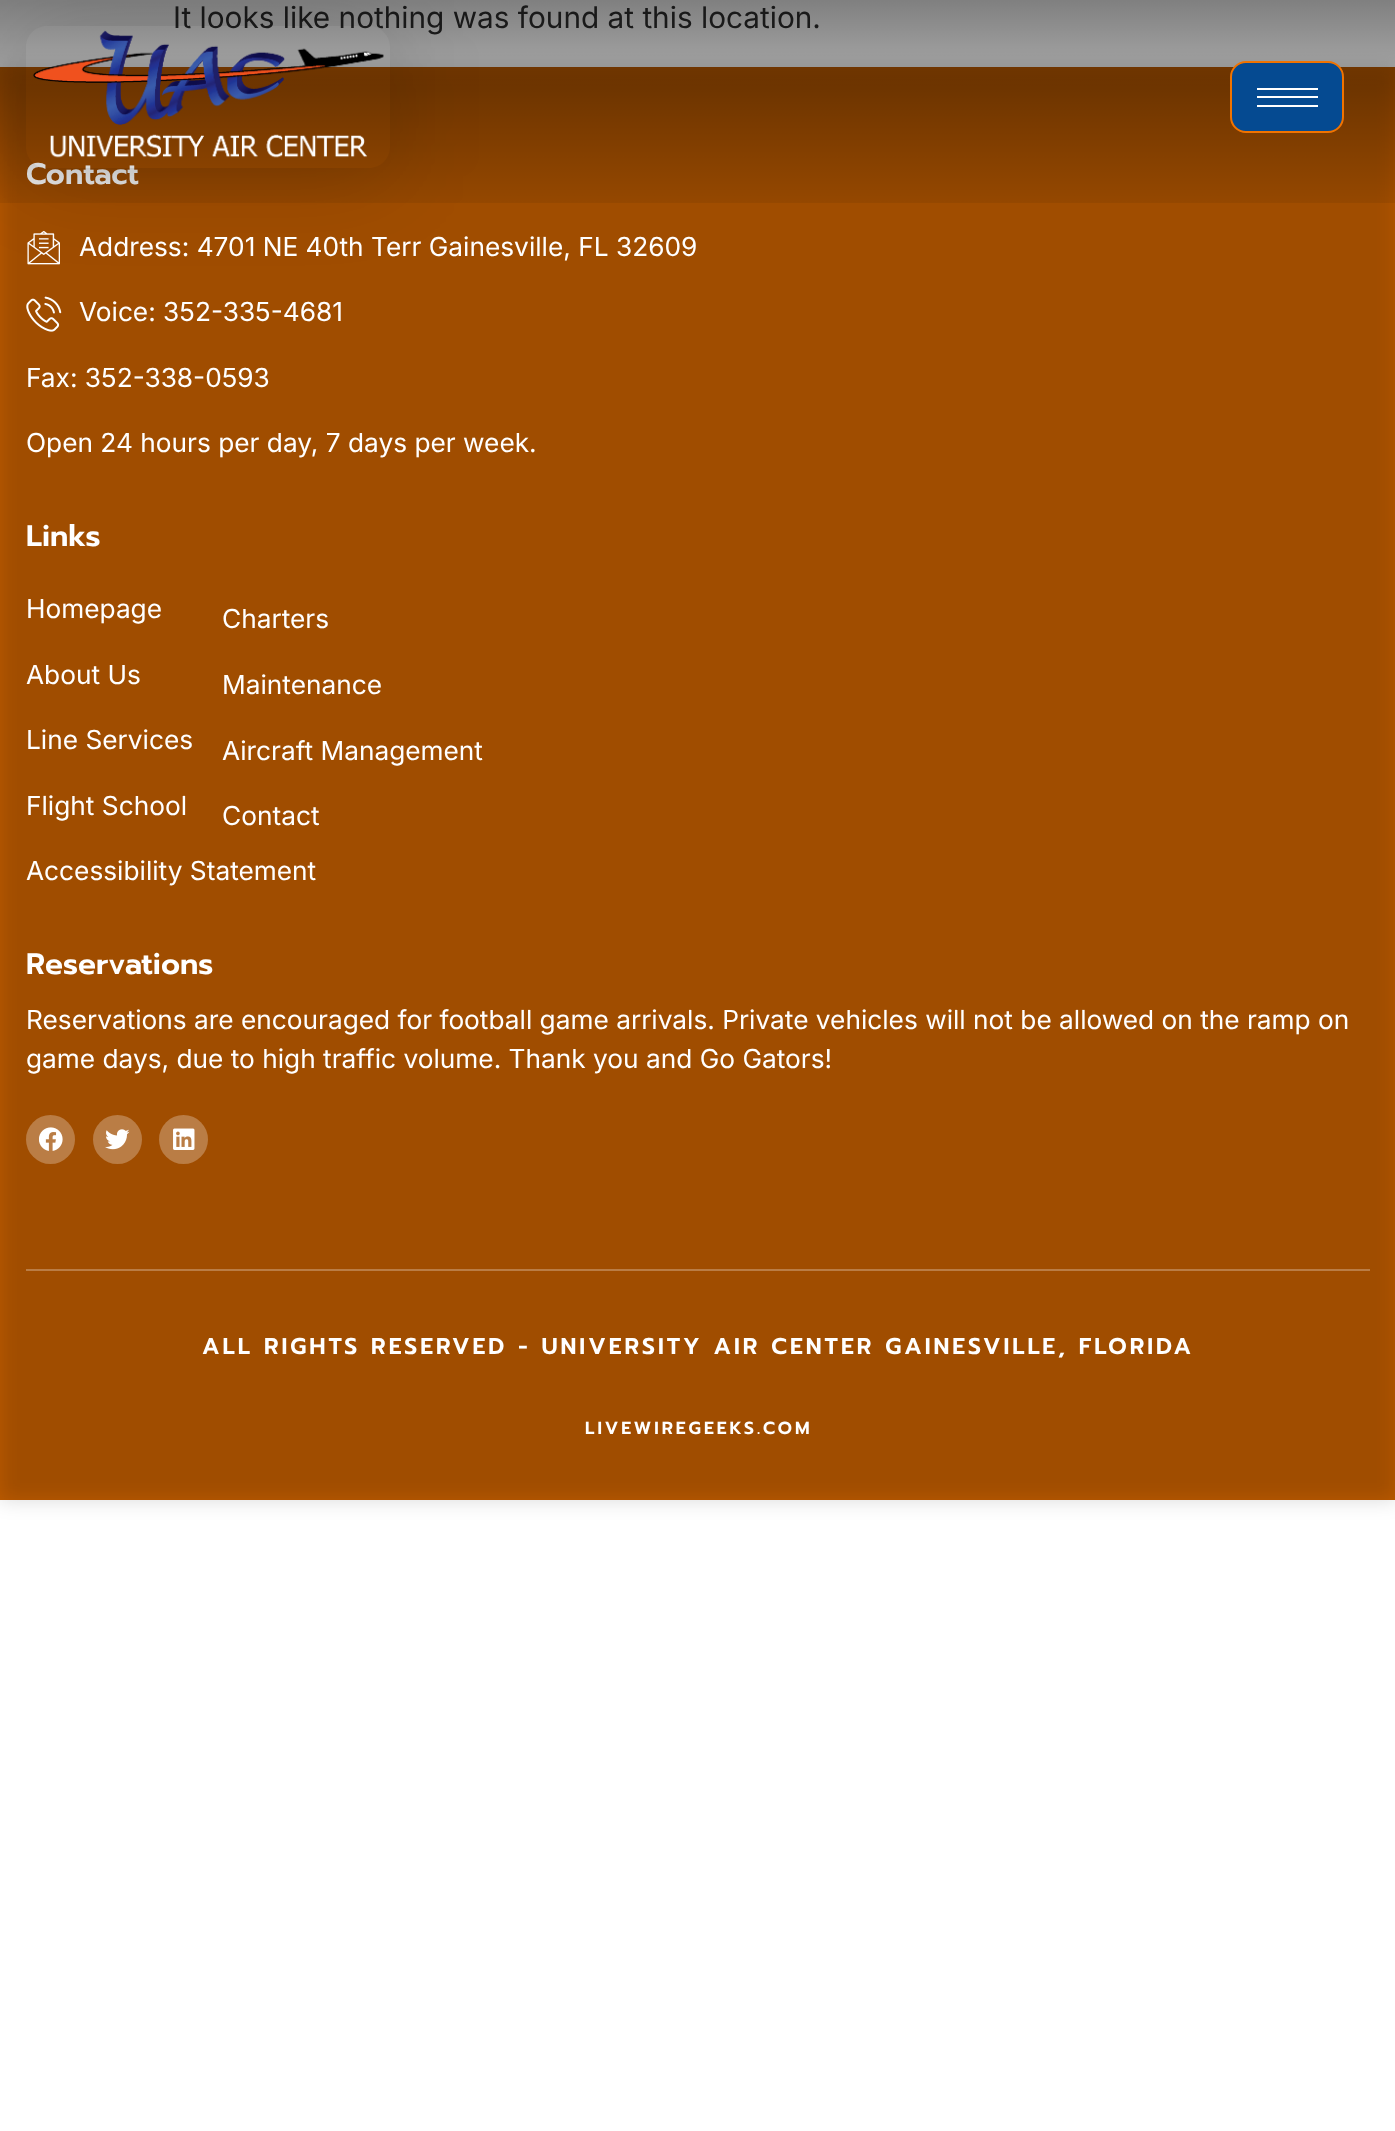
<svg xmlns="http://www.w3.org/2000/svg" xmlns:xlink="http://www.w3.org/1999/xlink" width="1395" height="2131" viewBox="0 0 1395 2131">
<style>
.cls-1{font:29.75px Inter;fill:#2f2f2f}
.cls-2{font:600 29.75px Prompt;fill:#ffffff}
.cls-3{font:26.25px Inter;fill:#ffffff}
.cls-4{font:600 22.75px Prompt;letter-spacing:2.98px;fill:#ffffff}
.cls-5{font:600 17.5px Prompt;letter-spacing:2.98px;fill:#ffffff}
</style>
<defs>
<linearGradient id="g1" gradientUnits="userSpaceOnUse" x1="698" y1="0" x2="698" y2="203"><stop offset="0" stop-color="#000000" stop-opacity="0.5"/><stop offset="1" stop-color="#000000" stop-opacity="0.07"/></linearGradient>
<clipPath id="clip1"><path d="M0 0H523V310H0ZM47 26H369C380.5 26 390 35.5 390 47V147C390 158.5 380.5 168 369 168H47C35.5 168 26 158.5 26 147V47C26 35.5 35.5 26 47 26Z" clip-rule="evenodd"/></clipPath>
</defs>
<rect width="100%" height="100%" fill="#ffffff"/>
<rect fill="#bd5b00" x="0" y="67" width="1395" height="1433"/>
<rect fill="#000000" fill-opacity="0.15" filter="blur(10px)" x="0" y="67" width="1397" height="1433"/>
<image xlink:href="image1.png" x="27" y="230" width="33" height="35"/>
<image xlink:href="image2.png" x="26" y="296" width="36" height="36"/>
<circle fill="#ba7d45" cx="50.5" cy="1139.5" r="24.5"/>
<image xlink:href="image3.png" x="39" y="1127" width="24" height="24"/>
<circle fill="#ba7d45" cx="117.5" cy="1139.5" r="24.5"/>
<image xlink:href="image4.png" x="105" y="1129" width="25" height="21"/>
<circle fill="#ba7d45" cx="183.5" cy="1139.5" r="24.5"/>
<image xlink:href="image5.png" x="173" y="1128" width="22" height="22"/>
<rect fill="#ba7d45" x="26" y="1269" width="1344" height="2"/>
<text class="cls-1" x="173" y="28">It looks like nothing was found at this location.</text>
<text class="cls-2" x="26" y="184">Contact</text>
<rect fill="url(#g1)" x="0" y="0" width="1395" height="203"/>
<rect fill="#054a91" stroke="#f17300" stroke-width="2" x="1231" y="62" width="112" height="70" rx="15"/>
<rect fill="#ffffff" x="1257" y="105" width="61" height="2"/>
<rect fill="#ffffff" x="1257" y="96" width="61" height="2"/>
<rect fill="#ffffff" x="1257" y="88" width="61" height="2"/>
<g clip-path="url(#clip1)">
<rect fill="#000000" fill-opacity="0.15" filter="blur(44px)" x="26" y="35" width="364" height="142" rx="21"/>
</g>
<image xlink:href="image0.png" x="33" y="30" width="351" height="128"/>
<text class="cls-3" x="79" y="256">Address: 4701 NE 40th Terr Gainesville, FL 32609</text>
<text class="cls-3" x="79" y="321">Voice: 352-335-4681</text>
<text class="cls-3" x="26" y="387">Fax: 352-338-0593</text>
<text class="cls-3" x="26" y="452">Open 24 hours per day, 7 days per week.</text>
<text class="cls-2" x="26" y="546">Links</text>
<text class="cls-3" x="26" y="618">Homepage</text>
<text class="cls-3" x="26" y="684">About Us</text>
<text class="cls-3" x="26" y="749">Line Services</text>
<text class="cls-3" x="26" y="815">Flight School</text>
<text class="cls-3" x="26" y="880">Accessibility Statement</text>
<text class="cls-3" x="222" y="628">Charters</text>
<text class="cls-3" x="222" y="694">Maintenance</text>
<text class="cls-3" x="222" y="760">Aircraft Management</text>
<text class="cls-3" x="222" y="825">Contact</text>
<text class="cls-2" x="26" y="974">Reservations</text>
<text class="cls-3"><tspan x="26" y="1029">Reservations are encouraged for football game arrivals. Private vehicles will not be allowed on the ramp on</tspan><tspan x="26" y="1068">game days, due to high traffic volume. Thank you and Go Gators!</tspan></text>
<text class="cls-4" x="202" y="1354">ALL RIGHTS RESERVED - UNIVERSITY AIR CENTER GAINESVILLE, FLORIDA</text>
<text class="cls-5" x="585" y="1434">LIVEWIREGEEKS.COM</text>
</svg>
